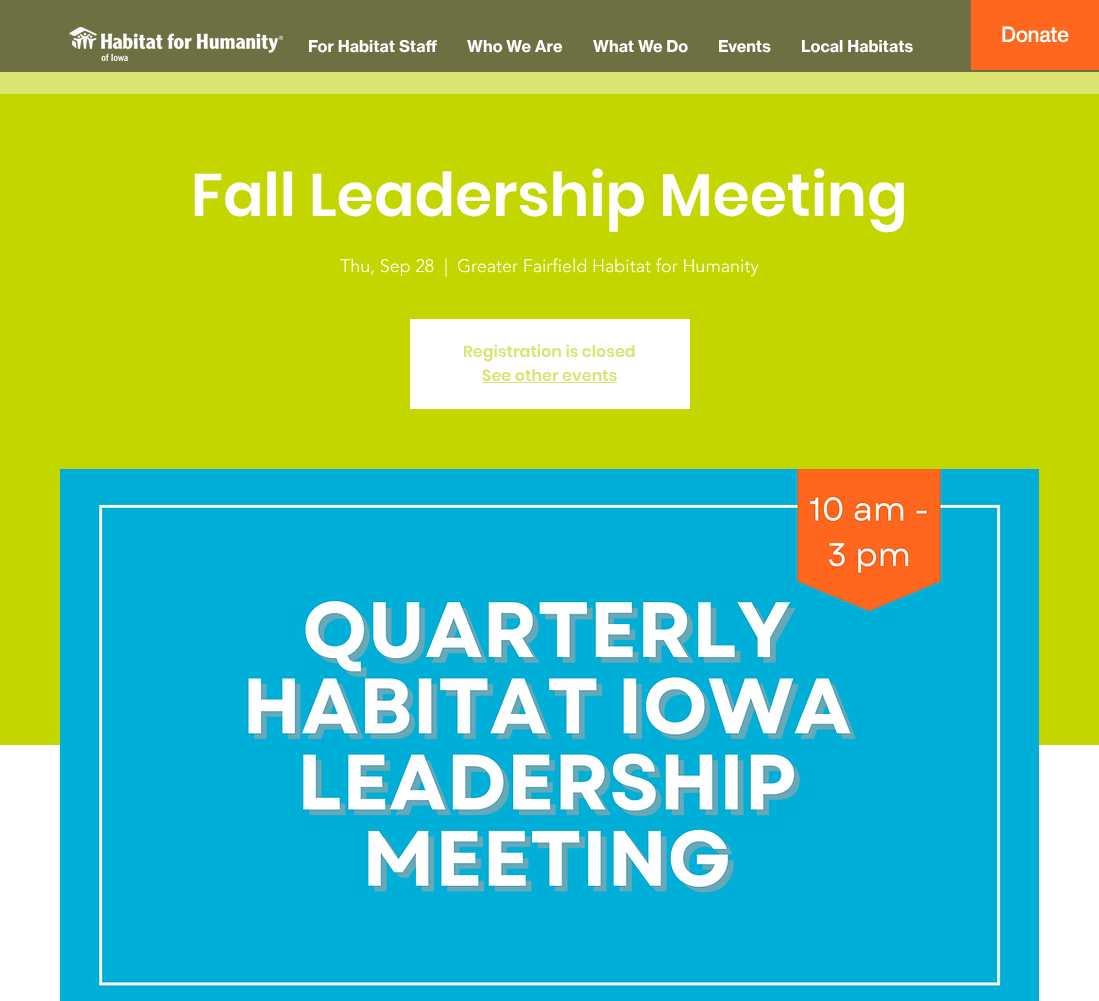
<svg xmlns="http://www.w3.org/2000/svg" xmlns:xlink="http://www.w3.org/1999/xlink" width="1099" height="1001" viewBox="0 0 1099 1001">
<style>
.cls-1{font:bold 20px 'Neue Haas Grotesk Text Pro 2';fill:#ffffff}
.cls-2{font:bold 16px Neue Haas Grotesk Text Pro;fill:#ffffff}
.cls-3{font:600 60px Poppins;fill:#ffffff}
.cls-4{font:300 18px 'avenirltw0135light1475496';fill:#ffffff}
.cls-5{font:600 16px Poppins;fill:#dae472}
</style>
<rect width="100%" height="100%" fill="#dae472"/>
<rect fill="#6c7043" x="0" y="0" width="1099" height="72"/>
<rect fill="#ff671f" x="971" y="0" width="128" height="70"/>
<image xlink:href="image0.png" x="69" y="27" width="214" height="34"/>
<rect fill="#c4d600" x="0" y="94" width="1099" height="651"/>
<rect fill="#ffffff" x="410" y="319" width="280" height="90"/>
<rect fill="#dae472" x="482" y="382" width="135" height="1"/>
<rect fill="#ffffff" x="0" y="745" width="1099" height="256"/>
<image xlink:href="image1.png" x="60" y="469" width="979" height="532"/>
<text class="cls-1" x="1001" y="42">Donate</text>
<text class="cls-2" x="308" y="52">For Habitat Staff</text>
<text class="cls-2" x="467" y="52">Who We Are</text>
<text class="cls-2" x="593" y="52">What We Do</text>
<text class="cls-2" x="718" y="52">Events</text>
<text class="cls-2" x="801" y="52">Local Habitats</text>
<text class="cls-3" x="191" y="216">Fall Leadership Meeting</text>
<text class="cls-4" x="340" y="272">Thu, Sep 28</text>
<text class="cls-4" x="444" y="272">|</text>
<text class="cls-4" x="457" y="272">Greater Fairfield Habitat for Humanity</text>
<text class="cls-5" x="463" y="357">Registration is closed</text>
<text class="cls-5" x="482" y="381">See other events</text>
</svg>
